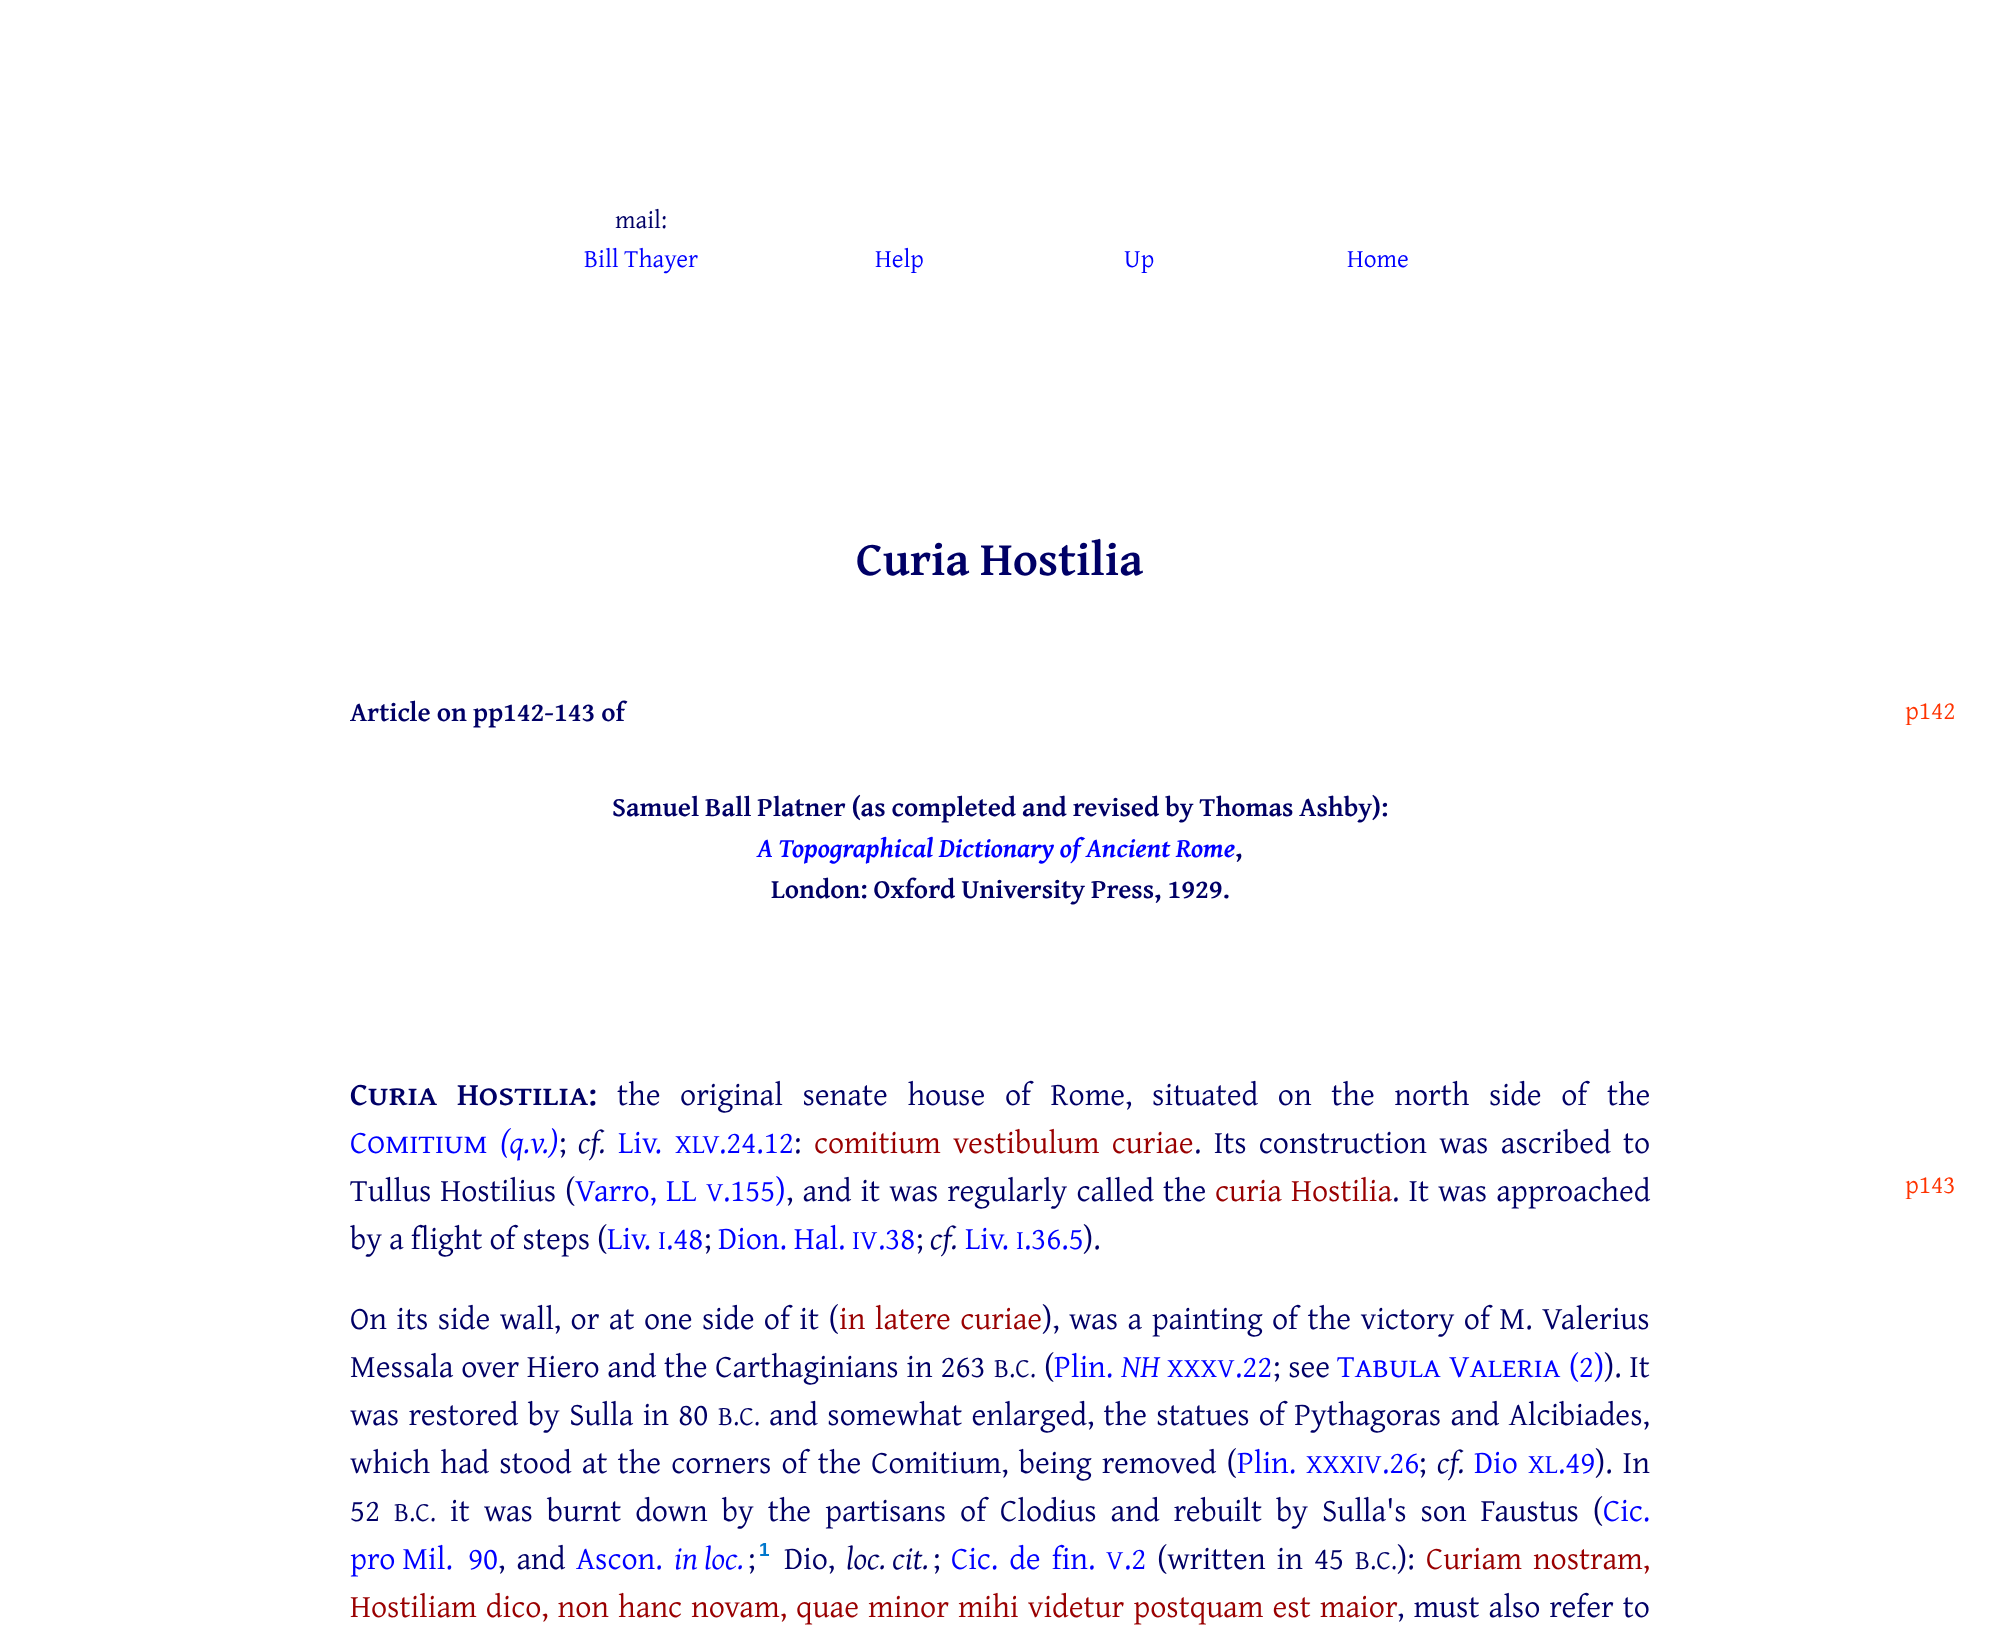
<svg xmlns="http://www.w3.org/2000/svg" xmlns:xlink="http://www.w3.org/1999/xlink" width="2000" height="1628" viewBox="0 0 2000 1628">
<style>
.cls-1{font:25.5px Gentium Plus;fill:#000066}
.cls-2{font:25.5px Gentium Plus;fill:#0000ff}
.cls-3{font:bold 48px Gentium Plus;fill:#000066}
.cls-4{font:bold 27.2px Gentium Plus;fill:#000066}
.cls-5{font:26px Gentium Plus;fill:#ff3300}
.cls-6{font:italic bold 27.2px Gentium Plus;fill:#0000ff}
.cls-7{font:bold 32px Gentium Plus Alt;fill:#000066}
.cls-8{font:32px Gentium Plus;fill:#000066}
.cls-9{font:32px Gentium Plus Alt;fill:#0000ff}
.cls-10{font:italic 32px Gentium Plus;fill:#0000ff}
.cls-11{font:italic 32px Gentium Plus;fill:#000066}
.cls-12{font:32px Gentium Plus;fill:#0000ff}
.cls-13{font:27.2px Gentium Plus;fill:#0000ff}
.cls-14{font:32px Gentium Plus;fill:#990000}
.cls-15{font:27.2px Gentium Plus;fill:#000066}
.cls-16{font:bold 19px Liberation Sans;fill:#0077cc}
</style>
<rect width="100%" height="100%" fill="#ffffff"/>
<text class="cls-1" x="615" y="228">mail:</text>
<text class="cls-2" x="584" y="267">Bill Thayer</text>
<text class="cls-2" x="875" y="267">Help</text>
<text class="cls-2" x="1124" y="267">Up</text>
<text class="cls-2" x="1347" y="267">Home</text>
<text class="cls-3" x="856" y="575">Curia Hostilia</text>
<text class="cls-4" x="350" y="721">Article on pp142‑143 of</text>
<text class="cls-5" x="1905" y="719">p142</text>
<text class="cls-4" x="612" y="816">Samuel Ball Platner (as completed and revised by Thomas Ashby):</text>
<text class="cls-6" x="757" y="857">A Topographical Dictionary of Ancient Rome</text>
<text class="cls-4" x="1235" y="857">,</text>
<text class="cls-4" x="771" y="898">London: Oxford University Press, 1929.</text>
<text class="cls-7" x="350" y="1105" word-spacing="12.6">Curia Hostilia:</text>
<text class="cls-8" x="617" y="1105" word-spacing="12.6">the original senate house of Rome, situated on the north side of the</text>
<text class="cls-9" x="350" y="1153">Comitium</text>
<text class="cls-10" x="500" y="1153">(q.v.)</text>
<text class="cls-8" x="559" y="1153">;</text>
<text class="cls-11" x="578" y="1153">cf.</text>
<text class="cls-12" x="618" y="1153">Liv.</text>
<text class="cls-13" x="675" y="1153">XLV</text>
<text class="cls-12" x="719" y="1153">.24.12</text>
<text class="cls-8" x="794" y="1153">:</text>
<text class="cls-14" x="814" y="1153" word-spacing="5.25">comitium vestibulum curiae</text>
<text class="cls-8" x="1194" y="1153" word-spacing="5.25">. Its construction was ascribed to</text>
<text class="cls-8" x="350" y="1201" word-spacing="2">Tullus Hostilius (</text>
<text class="cls-12" x="575" y="1201" word-spacing="2">Varro, LL</text>
<text class="cls-13" x="706" y="1201">V</text>
<text class="cls-12" x="723" y="1201">.155)</text>
<text class="cls-8" x="786" y="1201" word-spacing="2">, and it was regularly called the</text>
<text class="cls-14" x="1215" y="1201" word-spacing="2">curia Hostilia</text>
<text class="cls-8" x="1392" y="1201" word-spacing="2">. It was approached</text>
<text class="cls-5" x="1905" y="1193">p143</text>
<text class="cls-8" x="350" y="1249">by a flight of steps (</text>
<text class="cls-12" x="607" y="1249">Liv.</text>
<text class="cls-13" x="658" y="1249">I</text>
<text class="cls-12" x="666" y="1249">.48</text>
<text class="cls-8" x="704" y="1249">;</text>
<text class="cls-12" x="718" y="1249">Dion. Hal.</text>
<text class="cls-13" x="852" y="1249">IV</text>
<text class="cls-12" x="878" y="1249">.38</text>
<text class="cls-8" x="916" y="1249">;</text>
<text class="cls-11" x="930" y="1249">cf.</text>
<text class="cls-12" x="965" y="1249">Liv.</text>
<text class="cls-13" x="1016" y="1249">I</text>
<text class="cls-12" x="1024" y="1249">.36.5</text>
<text class="cls-8" x="1083" y="1249">).</text>
<text class="cls-8" x="350" y="1329" word-spacing="2.4">On its side wall, or at one side of it (</text>
<text class="cls-14" x="839" y="1329" word-spacing="2.4">in latere curiae</text>
<text class="cls-8" x="1042" y="1329" word-spacing="2.4">), was a painting of the victory of M. Valerius</text>
<text class="cls-8" x="350" y="1377" word-spacing="0.75">Messala over Hiero and the Carthaginians in 263</text>
<text class="cls-15" x="994" y="1377">B.C.</text>
<text class="cls-8" x="1044" y="1377">(</text>
<text class="cls-12" x="1054" y="1377">Plin.</text>
<text class="cls-10" x="1121" y="1377">NH</text>
<text class="cls-13" x="1167" y="1377">XXXV</text>
<text class="cls-12" x="1235" y="1377">.22</text>
<text class="cls-8" x="1273" y="1377" word-spacing="0.75">; see</text>
<text class="cls-9" x="1337" y="1377" word-spacing="1">Tabula Valeria (2)</text>
<text class="cls-8" x="1604" y="1377" word-spacing="0.75">). It</text>
<text class="cls-8" x="350" y="1425" word-spacing="2.25">was restored by Sulla in 80</text>
<text class="cls-15" x="718" y="1425">B.C.</text>
<text class="cls-8" x="769" y="1425" word-spacing="2.25">and somewhat enlarged, the statues of Pythagoras and Alcibiades,</text>
<text class="cls-8" x="350" y="1473" word-spacing="3.1">which had stood at the corners of the Comitium, being removed (</text>
<text class="cls-12" x="1237" y="1473">Plin.</text>
<text class="cls-13" x="1306" y="1473">XXXIV</text>
<text class="cls-12" x="1382" y="1473">.26</text>
<text class="cls-8" x="1419" y="1473">;</text>
<text class="cls-11" x="1437" y="1473">cf.</text>
<text class="cls-12" x="1474" y="1473">Dio</text>
<text class="cls-13" x="1528" y="1473">XL</text>
<text class="cls-12" x="1558" y="1473">.49</text>
<text class="cls-8" x="1595" y="1473" word-spacing="3.1">). In</text>
<text class="cls-8" x="350" y="1521">52</text>
<text class="cls-15" x="394" y="1521">B.C.</text>
<text class="cls-8" x="450" y="1521" word-spacing="6.9">it was burnt down by the partisans of Clodius and rebuilt by Sulla's son Faustus (</text>
<text class="cls-12" x="1603" y="1521">Cic.</text>
<text class="cls-12" x="350" y="1569">pro Mil.</text>
<text class="cls-12" x="468" y="1569">90</text>
<text class="cls-8" x="498" y="1569" word-spacing="4">, and</text>
<text class="cls-12" x="576" y="1569">Ascon.</text>
<text class="cls-10" x="674" y="1569">in loc.</text>
<text class="cls-8" x="748" y="1569">;</text>
<text class="cls-16" x="759" y="1556">1</text>
<text class="cls-8" x="784" y="1569">Dio,</text>
<text class="cls-11" x="846" y="1569">loc. cit.</text>
<text class="cls-8" x="933" y="1569">;</text>
<text class="cls-12" x="951" y="1569" word-spacing="4">Cic. de fin.</text>
<text class="cls-13" x="1106" y="1569">V</text>
<text class="cls-12" x="1124" y="1569">.2</text>
<text class="cls-8" x="1157" y="1569" word-spacing="4">(written in 45</text>
<text class="cls-15" x="1355" y="1569">B.C.</text>
<text class="cls-8" x="1397" y="1569">):</text>
<text class="cls-14" x="1426" y="1569" word-spacing="4">Curiam nostram,</text>
<text class="cls-14" x="350" y="1617" word-spacing="2">Hostiliam dico, non hanc novam, quae minor mihi videtur postquam est maior</text>
<text class="cls-8" x="1397" y="1617" word-spacing="2">, must also refer to</text>
</svg>
